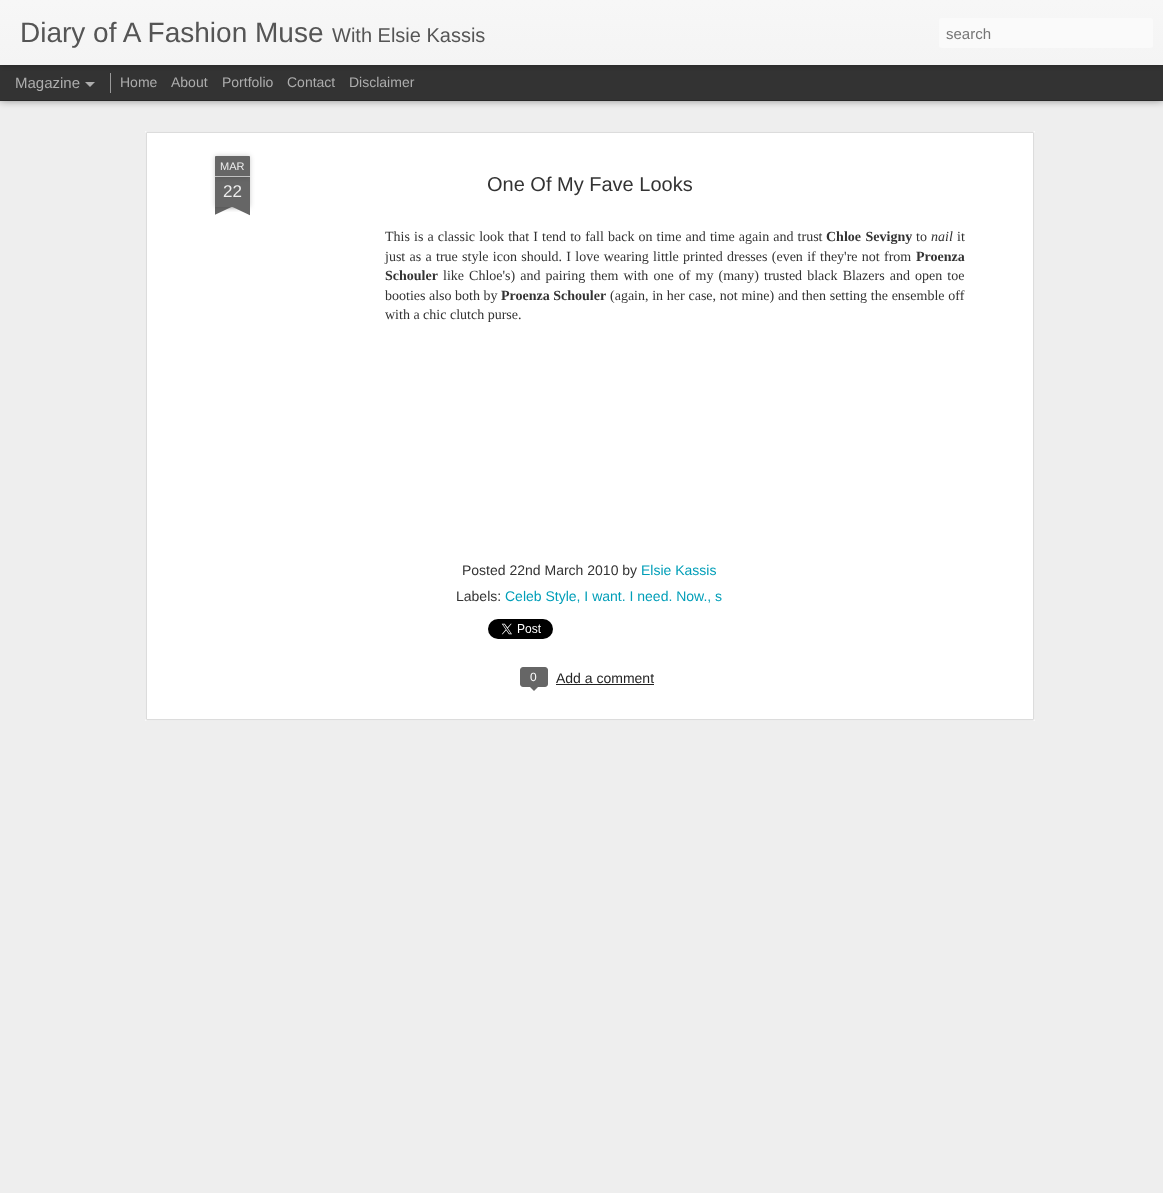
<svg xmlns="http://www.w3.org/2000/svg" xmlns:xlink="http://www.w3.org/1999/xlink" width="1163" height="1193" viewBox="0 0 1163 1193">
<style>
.cls-1{font:28px Liberation Sans;fill:#555555}
.cls-2{font:20px Liberation Sans;fill:#555555}
.cls-3{font:15px Liberation Sans;fill:#757575}
.cls-4{font:15px Liberation Sans;fill:#adadad}
.cls-5{font:14px Liberation Sans;fill:#adadad}
.cls-6{font:11px Liberation Sans;fill:#eeeeee}
.cls-7{font:17px Liberation Sans;fill:#eeeeee}
.cls-8{font:20px Liberation Sans;fill:#333333}
.cls-9{font:14px Liberation Serif;fill:#333333}
.cls-10{font:bold 14px Liberation Serif;fill:#333333}
.cls-11{font:italic 14px Liberation Serif;fill:#333333}
.cls-12{font:14px Liberation Sans;fill:#333333}
.cls-13{font:14px Liberation Sans;fill:#009eb8}
.cls-14{font:12px Liberation Sans;fill:#ffffff}
.cls-15{font:14px Liberation Sans;fill:#222222}
</style>
<defs>
<linearGradient id="g1" gradientUnits="userSpaceOnUse" x1="0" y1="0" x2="0" y2="65"><stop offset="0" stop-color="#f7f7f7"/><stop offset="1" stop-color="#f4f4f4"/></linearGradient>
<clipPath id="clip1"><rect x="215" y="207" width="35" height="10"/></clipPath>
<clipPath id="clip2"><rect x="215" y="207" width="35" height="10"/></clipPath>
</defs>
<rect width="100%" height="100%" fill="#333333"/>
<rect fill="#eeeeee" x="0" y="101" width="1163" height="1092"/>
<rect fill="#000000" fill-opacity="0.5" filter="blur(4px)" x="0" y="65" width="1163" height="35"/>
<rect fill="#333333" x="0" y="65" width="1163" height="35"/>
<rect fill="#999999" x="110" y="73" width="1" height="20"/>
<rect fill="#000000" fill-opacity="0.3" filter="blur(2.5px)" x="0" y="0" width="1163" height="65"/>
<rect fill="url(#g1)" x="0" y="0" width="1163" height="65"/>
<rect fill="#fafafa" x="939" y="18" width="214" height="30" rx="3"/>
<path fill="#adadad" d="M85 82H95L90 87Z"/>
<rect fill="#ffffff" x="145" y="131" width="890" height="590"/>
<image xlink:href="image0.png" x="145" y="131" width="890" height="590"/>
<rect fill="#000000" fill-opacity="0.2" filter="blur(2.5px)" x="215" y="177" width="35" height="30"/>
<rect fill="#666666" x="215" y="177" width="35" height="30"/>
<rect fill="#000000" fill-opacity="0.2" filter="blur(2.5px)" x="215" y="156" width="35" height="21" rx="1"/>
<path fill="#666666" d="M216 156H249C249.5 156 250 156.5 250 157V177H215V157C215 156.5 215.5 156 216 156Z"/>
<rect fill="#c2c2c2" x="215" y="176" width="35" height="1"/>
<g clip-path="url(#clip1)">
<rect fill="#000000" fill-opacity="0.2" filter="blur(2.5px)" x="206" y="197" width="50" height="10"/>
</g>
<g clip-path="url(#clip2)">
<path fill="#666666" d="M206 208L251 187L255 196L210 217Z"/>
</g>
<g clip-path="url(#clip1)">
<rect fill="#000000" fill-opacity="0.2" filter="blur(2.5px)" x="209" y="197" width="50" height="10"/>
</g>
<g clip-path="url(#clip2)">
<path fill="#666666" d="M213 187L258 208L254 217L209 196Z"/>
</g>
<image xlink:href="image1.png" x="488" y="619" width="65" height="20"/>
<rect fill="#666666" stroke="#666666" x="520.5" y="667.5" width="27" height="19" rx="2.5"/>
<path fill="#666666" d="M529 686H539L534 691Z"/>
<rect fill="#222222" x="556" y="684" width="98" height="1"/>
<text class="cls-1" x="20" y="42">Diary of A Fashion Muse</text>
<text class="cls-2" x="332" y="42">With Elsie Kassis</text>
<text class="cls-3" x="946" y="39">search</text>
<text class="cls-4" x="15" y="88">Magazine</text>
<text class="cls-5" x="120" y="87">Home</text>
<text class="cls-5" x="171" y="87">About</text>
<text class="cls-5" x="222" y="87">Portfolio</text>
<text class="cls-5" x="287" y="87">Contact</text>
<text class="cls-5" x="349" y="87">Disclaimer</text>
<text class="cls-6" x="220" y="170">MAR</text>
<text class="cls-7" x="223" y="197">22</text>
<text class="cls-8" x="487" y="191">One Of My Fave Looks</text>
<text class="cls-9" x="385" y="241" word-spacing="0.6">This is a classic look that I tend to fall back on time and time again and trust</text>
<text class="cls-10" x="826" y="241" word-spacing="1">Chloe Sevigny</text>
<text class="cls-9" x="916" y="241">to</text>
<text class="cls-11" x="931" y="241">nail</text>
<text class="cls-9" x="957" y="241">it</text>
<text class="cls-9" x="385" y="261" word-spacing="0.8">just as a true style icon should. I love wearing little printed dresses (even if they're not from</text>
<text class="cls-10" x="916" y="261">Proenza</text>
<text class="cls-10" x="385" y="280">Schouler</text>
<text class="cls-9" x="443" y="280" word-spacing="1.6">like Chloe's) and pairing them with one of my (many) trusted black Blazers and open toe</text>
<text class="cls-9" x="385" y="300">booties also both by</text>
<text class="cls-10" x="501" y="300">Proenza Schouler</text>
<text class="cls-9" x="610" y="300" word-spacing="0.25">(again, in her case, not mine) and then setting the ensemble off</text>
<text class="cls-9" x="385" y="319">with a chic clutch purse.</text>
<text class="cls-12" x="462" y="575">Posted 22nd March 2010 by</text>
<text class="cls-13" x="641" y="575">Elsie Kassis</text>
<text class="cls-12" x="456" y="601">Labels:</text>
<text class="cls-13" x="505" y="601">Celeb Style, I want. I need. Now., s</text>
<text class="cls-14" x="530" y="681">0</text>
<text class="cls-15" x="556" y="683">Add a comment</text>
</svg>
